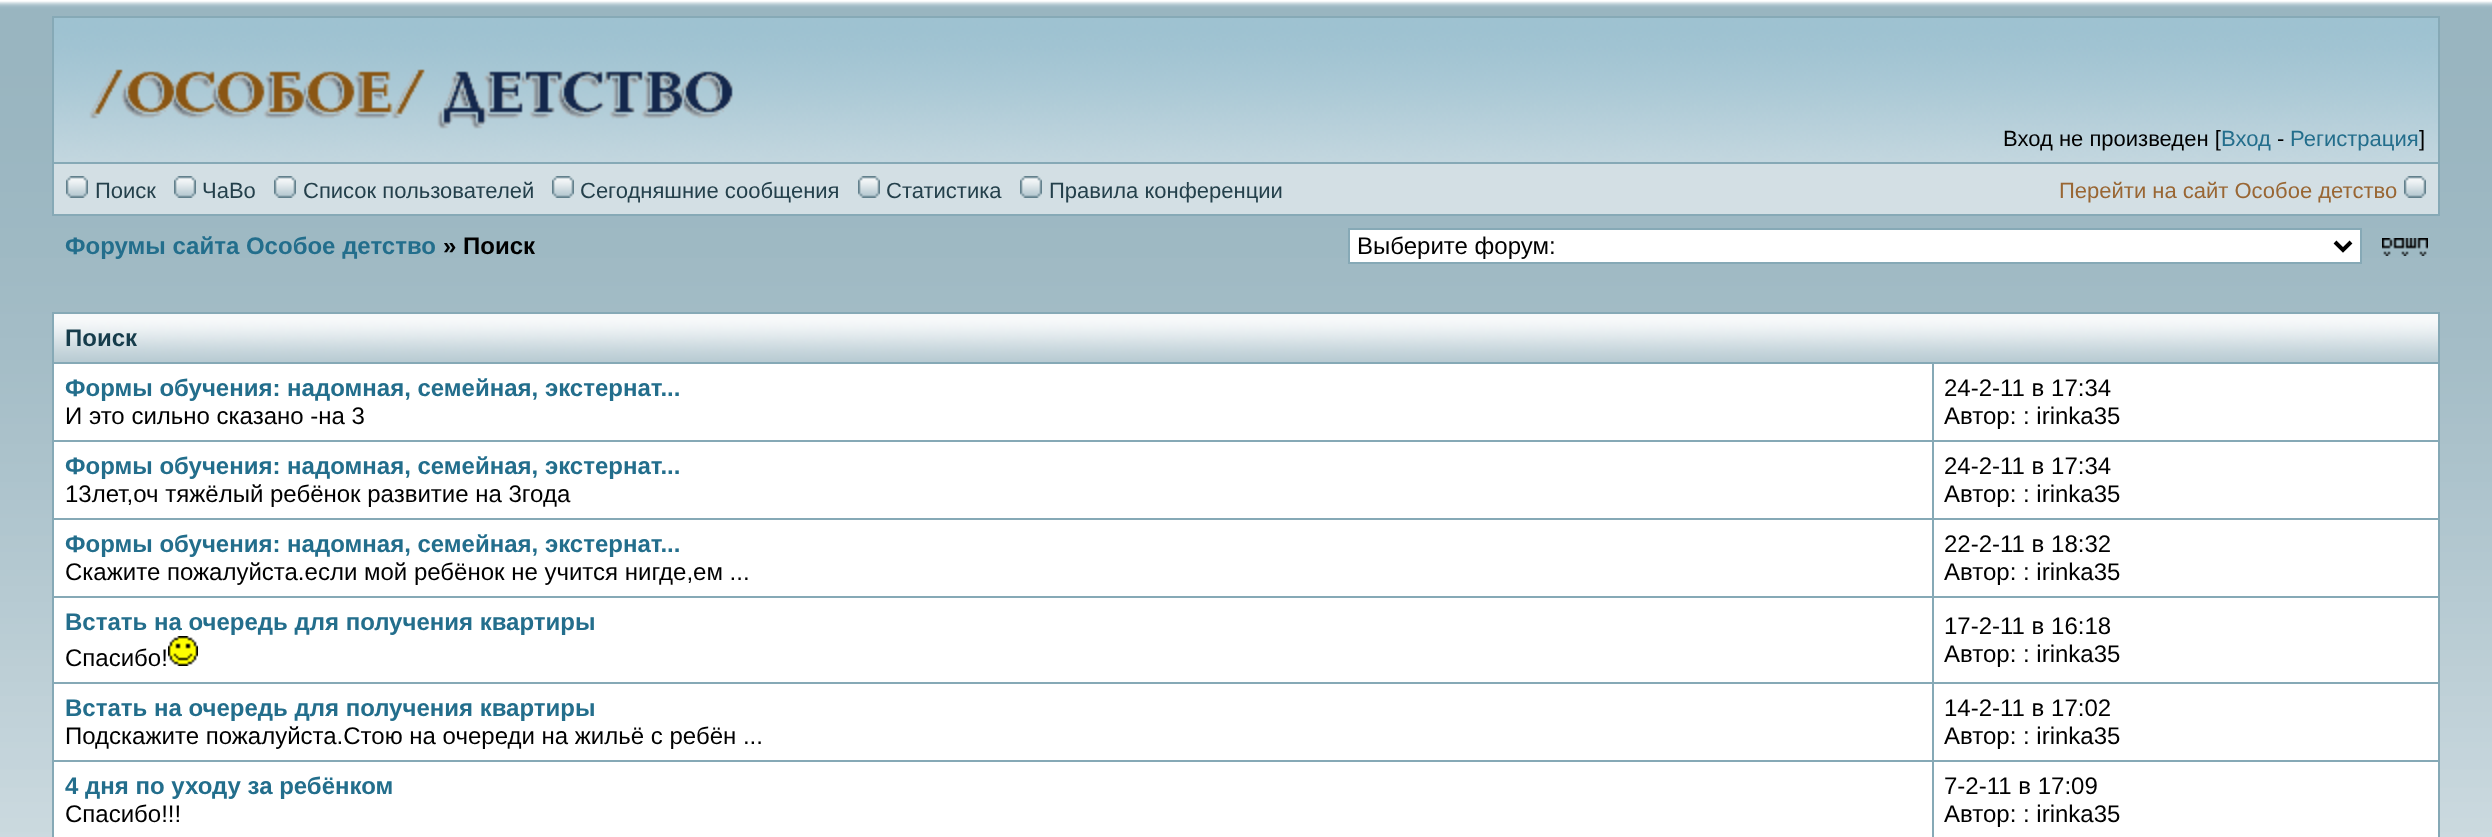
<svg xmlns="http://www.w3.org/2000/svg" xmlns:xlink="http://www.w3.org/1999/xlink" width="2492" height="837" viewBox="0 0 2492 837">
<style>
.cls-1{font:22px Liberation Sans;fill:#000000}
.cls-2{font:22px Liberation Sans;fill:#236e8c}
.cls-3{font:22px Liberation Sans;fill:#24404b}
.cls-4{font:22px Liberation Sans;fill:#996633}
.cls-5{font:bold 24px Liberation Sans;fill:#236e8c}
.cls-6{font:bold 24px Liberation Sans;fill:#000000}
.cls-7{font:24px Liberation Sans;fill:#000000}
.cls-8{font:bold 24px Liberation Sans;fill:#163c4b}
</style>
<rect width="100%" height="100%" fill="#ffffff"/>
<image xlink:href="image0.png" x="0" y="1" width="2492" height="836"/>
<rect fill="#86a9b6" x="52" y="16" width="2388" height="200"/>
<image xlink:href="image1.png" x="54" y="18" width="2384" height="144"/>
<image xlink:href="image2.png" x="89" y="69" width="644" height="60"/>
<rect fill="#d3dfe4" x="54" y="164" width="2384" height="50"/>
<image xlink:href="image3.png" x="66" y="176" width="22" height="22"/>
<image xlink:href="image3.png" x="174" y="176" width="22" height="22"/>
<image xlink:href="image3.png" x="274" y="176" width="22" height="22"/>
<image xlink:href="image3.png" x="552" y="176" width="22" height="22"/>
<image xlink:href="image3.png" x="858" y="176" width="22" height="22"/>
<image xlink:href="image3.png" x="1020" y="176" width="22" height="22"/>
<image xlink:href="image3.png" x="2404" y="176" width="22" height="22"/>
<rect fill="#ffffff" stroke="#86a9b6" stroke-width="2" x="1349" y="229" width="1012" height="34"/>
<path fill="none" stroke="#000000" stroke-width="4" d="M2335 242L2343 250L2351 242"/>
<image xlink:href="image4.png" x="2382" y="238" width="46" height="18"/>
<rect fill="#86a9b6" x="52" y="312" width="2388" height="525"/>
<image xlink:href="image5.png" x="54" y="314" width="2384" height="48"/>
<rect fill="#ffffff" x="54" y="364" width="1878" height="76"/>
<rect fill="#ffffff" x="1934" y="364" width="504" height="76"/>
<rect fill="#ffffff" x="54" y="442" width="1878" height="76"/>
<rect fill="#ffffff" x="1934" y="442" width="504" height="76"/>
<rect fill="#ffffff" x="54" y="520" width="1878" height="76"/>
<rect fill="#ffffff" x="1934" y="520" width="504" height="76"/>
<rect fill="#ffffff" x="54" y="598" width="1878" height="84"/>
<image xlink:href="image6.png" x="168" y="636" width="30" height="30"/>
<rect fill="#ffffff" x="1934" y="598" width="504" height="84"/>
<rect fill="#ffffff" x="54" y="684" width="1878" height="76"/>
<rect fill="#ffffff" x="1934" y="684" width="504" height="76"/>
<rect fill="#ffffff" x="54" y="762" width="1878" height="75"/>
<rect fill="#ffffff" x="1934" y="762" width="504" height="75"/>
<text class="cls-1" x="2003" y="146">Вход не произведен [</text>
<text class="cls-2" x="2221" y="146">Вход</text>
<text class="cls-1" x="2277" y="146">-</text>
<text class="cls-2" x="2290" y="146">Регистрация</text>
<text class="cls-1" x="2419" y="146">]</text>
<text class="cls-3" x="95" y="198">Поиск</text>
<text class="cls-3" x="202" y="198">ЧаВо</text>
<text class="cls-3" x="303" y="198">Список пользователей</text>
<text class="cls-3" x="580" y="198">Сегодняшние сообщения</text>
<text class="cls-3" x="886" y="198">Статистика</text>
<text class="cls-3" x="1049" y="198">Правила конференции</text>
<text class="cls-4" x="2059" y="198">Перейти на сайт Особое детство</text>
<text class="cls-5" x="65" y="254">Форумы сайта Особое детство</text>
<text class="cls-6" x="443" y="254">» Поиск</text>
<text class="cls-7" x="1357" y="254">Выберите форум:</text>
<text class="cls-8" x="65" y="346">Поиск</text>
<text class="cls-5" x="65" y="396">Формы обучения: надомная, семейная, экстернат...</text>
<text class="cls-7" x="65" y="424">И это сильно сказано -на 3</text>
<text class="cls-7"><tspan x="1944" y="396">24-2-11 в 17:34</tspan><tspan x="1944" y="424">Автор: : irinka35</tspan></text>
<text class="cls-5" x="65" y="474">Формы обучения: надомная, семейная, экстернат...</text>
<text class="cls-7" x="65" y="502">13лет,оч тяжёлый ребёнок развитие на 3года</text>
<text class="cls-7"><tspan x="1944" y="474">24-2-11 в 17:34</tspan><tspan x="1944" y="502">Автор: : irinka35</tspan></text>
<text class="cls-5" x="65" y="552">Формы обучения: надомная, семейная, экстернат...</text>
<text class="cls-7" x="65" y="580">Скажите пожалуйста.если мой ребёнок не учится нигде,ем ...</text>
<text class="cls-7"><tspan x="1944" y="552">22-2-11 в 18:32</tspan><tspan x="1944" y="580">Автор: : irinka35</tspan></text>
<text class="cls-5" x="65" y="630">Встать на очередь для получения квартиры</text>
<text class="cls-7" x="65" y="666">Спасибо!</text>
<text class="cls-7"><tspan x="1944" y="634">17-2-11 в 16:18</tspan><tspan x="1944" y="662">Автор: : irinka35</tspan></text>
<text class="cls-5" x="65" y="716">Встать на очередь для получения квартиры</text>
<text class="cls-7" x="65" y="744">Подскажите пожалуйста.Стою на очереди на жильё с ребён ...</text>
<text class="cls-7"><tspan x="1944" y="716">14-2-11 в 17:02</tspan><tspan x="1944" y="744">Автор: : irinka35</tspan></text>
<text class="cls-5" x="65" y="794">4 дня по уходу за ребёнком</text>
<text class="cls-7" x="65" y="822">Спасибо!!!</text>
<text class="cls-7"><tspan x="1944" y="794">7-2-11 в 17:09</tspan><tspan x="1944" y="822">Автор: : irinka35</tspan></text>
</svg>
